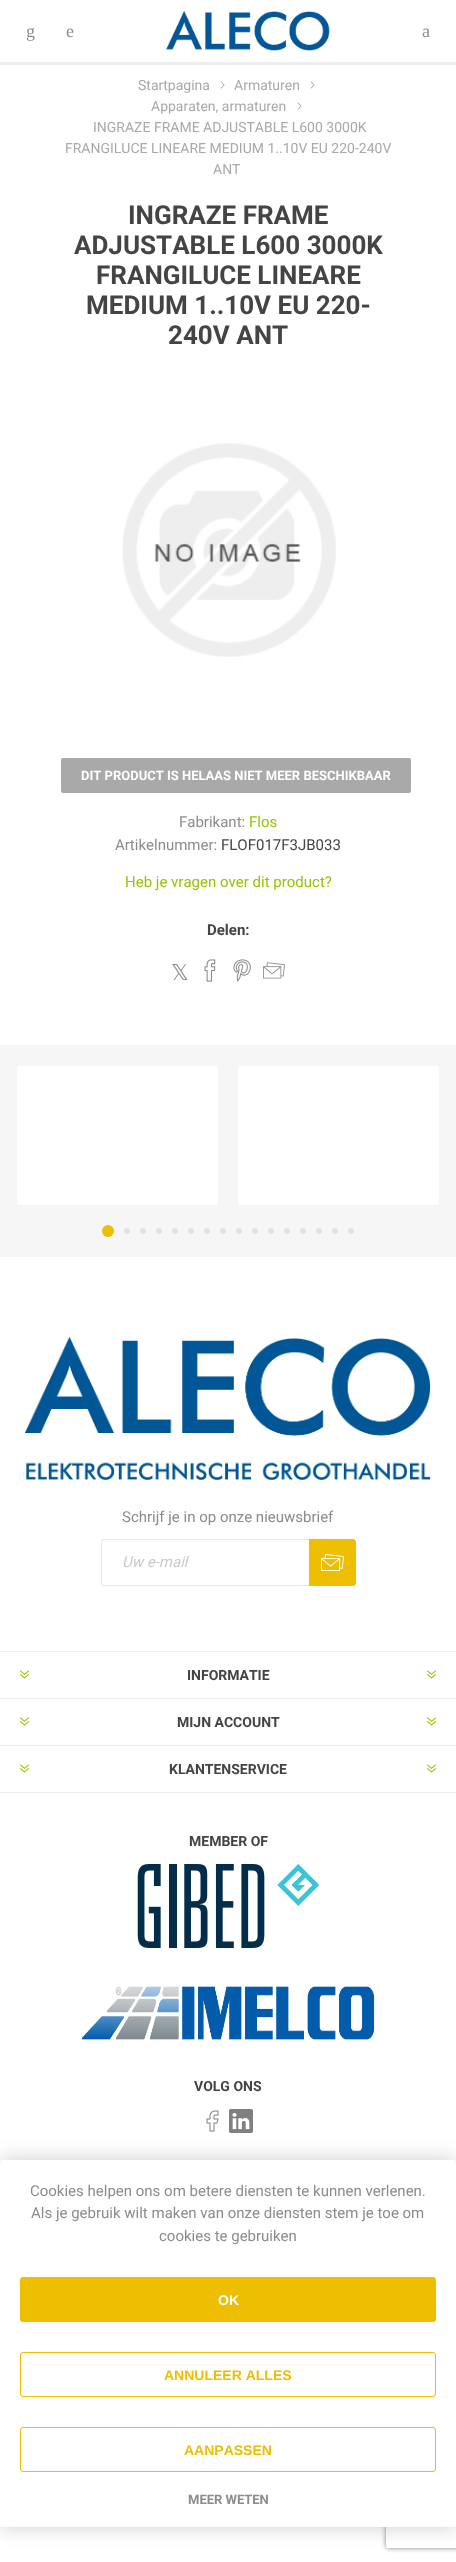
<svg xmlns="http://www.w3.org/2000/svg" xmlns:xlink="http://www.w3.org/1999/xlink" width="456" height="2562" viewBox="0 0 456 2562">
<style>*{font-kerning:none!important;font-variant-ligatures:none!important}</style>
<style>
.cls-1{font:18px Liberation Serif;fill:#8c8c8c}
.cls-2{font:14px Roboto;fill:#a9a9a9}
.cls-3{font:bold 26px Roboto;fill:#444444}
.cls-4{font:bold 13px Roboto;fill:#ffffff}
.cls-5{font:15px Roboto;fill:#8c8c8c}
.cls-6{font:15px Roboto;fill:#97c300}
.cls-7{font:15px Roboto;fill:#444444}
.cls-8{font:bold 15px Roboto;fill:#444444}
.cls-9{font:22px DejaVu Sans;fill:#8c8c8c}
.cls-10{font:italic 15px Roboto;fill:#cacaca}
.cls-11{font:bold 14px Roboto;fill:#444444}
.cls-12{font:bold 14px Liberation Sans;fill:#ffffff}
.cls-13{font:bold 14px Liberation Sans;fill:#eebe00}
.cls-14{font:bold 13px Roboto;fill:#8c8c8c}
</style>
<defs>
<clipPath id="clip1"><path d="M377 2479H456V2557H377ZM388 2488H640C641 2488 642 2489 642 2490V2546C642 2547 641 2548 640 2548H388C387 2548 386 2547 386 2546V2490C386 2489 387 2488 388 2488Z" clip-rule="evenodd"/></clipPath>
</defs>
<rect width="100%" height="100%" fill="#ffffff"/>
<rect fill="#eeeeee" x="0" y="62" width="456" height="3"/>
<image xlink:href="image0.png" x="166" y="11" width="164" height="40"/>
<image xlink:href="image1.png" x="220" y="81" width="5" height="8"/>
<image xlink:href="image1.png" x="310" y="81" width="5" height="8"/>
<image xlink:href="image1.png" x="297" y="102" width="5" height="8"/>
<image xlink:href="image2.png" x="122" y="443" width="214" height="214"/>
<rect fill="#a9a9a9" x="61" y="758" width="350" height="35" rx="2"/>
<image xlink:href="image3.png" x="204" y="959" width="12" height="23"/>
<image xlink:href="image4.png" x="233" y="959" width="18" height="23"/>
<image xlink:href="image5.png" x="263" y="962" width="22" height="17"/>
<rect fill="#f6f6f6" x="0" y="1045" width="456" height="212"/>
<rect fill="#ffffff" x="17" y="1066" width="201" height="139" rx="3"/>
<rect fill="#ffffff" x="238" y="1066" width="201" height="139" rx="3"/>
<circle fill="#eebe00" cx="108" cy="1231" r="6"/>
<circle fill="#e2e2e2" cx="127" cy="1231" r="3"/>
<circle fill="#e2e2e2" cx="143" cy="1231" r="3"/>
<circle fill="#e2e2e2" cx="159" cy="1231" r="3"/>
<circle fill="#e2e2e2" cx="175" cy="1231" r="3"/>
<circle fill="#e2e2e2" cx="191" cy="1231" r="3"/>
<circle fill="#e2e2e2" cx="207" cy="1231" r="3"/>
<circle fill="#e2e2e2" cx="223" cy="1231" r="3"/>
<circle fill="#e2e2e2" cx="239" cy="1231" r="3"/>
<circle fill="#e2e2e2" cx="255" cy="1231" r="3"/>
<circle fill="#e2e2e2" cx="271" cy="1231" r="3"/>
<circle fill="#e2e2e2" cx="287" cy="1231" r="3"/>
<circle fill="#e2e2e2" cx="303" cy="1231" r="3"/>
<circle fill="#e2e2e2" cx="319" cy="1231" r="3"/>
<circle fill="#e2e2e2" cx="335" cy="1231" r="3"/>
<circle fill="#e2e2e2" cx="351" cy="1231" r="3"/>
<image xlink:href="image6.png" x="25" y="1337" width="406" height="143"/>
<path fill="#e7e7e7" fill-rule="evenodd" d="M104 1539H309V1586H104C102 1586 101 1585 101 1583V1542C101 1540 102 1539 104 1539ZM104 1540H309V1585H104C103 1585 102 1584 102 1583V1542C102 1541 103 1540 104 1540Z"/>
<path fill="#eebe00" d="M309 1539H353C354.5 1539 356 1540.5 356 1542V1583C356 1584.5 354.5 1586 353 1586H309Z"/>
<image xlink:href="image7.png" x="321" y="1554" width="23" height="17"/>
<rect fill="#eeeeee" x="0" y="1651" width="456" height="1"/>
<rect fill="#eeeeee" x="0" y="1698" width="456" height="1"/>
<image xlink:href="image8.png" x="20" y="1670" width="9" height="9"/>
<image xlink:href="image8.png" x="427" y="1670" width="9" height="9"/>
<rect fill="#eeeeee" x="0" y="1745" width="456" height="1"/>
<image xlink:href="image8.png" x="20" y="1717" width="9" height="9"/>
<image xlink:href="image8.png" x="427" y="1717" width="9" height="9"/>
<rect fill="#eeeeee" x="0" y="1792" width="456" height="1"/>
<image xlink:href="image8.png" x="20" y="1764" width="9" height="9"/>
<image xlink:href="image8.png" x="427" y="1764" width="9" height="9"/>
<image xlink:href="image9.png" x="137" y="1864" width="183" height="84"/>
<image xlink:href="image10.png" x="81" y="1986" width="294" height="54"/>
<image xlink:href="image11.png" x="206" y="2110" width="13" height="22"/>
<image xlink:href="image12.png" x="229" y="2109" width="24" height="24"/>
<rect fill="#000000" fill-opacity="0.2" filter="blur(10px)" x="0" y="2160" width="456" height="367" rx="3"/>
<g clip-path="url(#clip1)">
<rect fill="#808080" filter="blur(2.5px)" x="386" y="2488" width="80" height="60" rx="2"/>
</g>
<rect fill="#ffffff" x="0" y="2160" width="456" height="367" rx="3"/>
<rect fill="#eebe00" x="20" y="2277" width="416" height="45" rx="3"/>
<rect fill="none" stroke="#eebe00" x="20.5" y="2352.5" width="415" height="44" rx="2.5"/>
<rect fill="none" stroke="#eebe00" x="20.5" y="2427.5" width="415" height="44" rx="2.5"/>
<text class="cls-1" x="26" y="37">g</text>
<text class="cls-1" x="66" y="37">e</text>
<text class="cls-1" x="422" y="37">a</text>
<text class="cls-2" x="138" y="90">Startpagina</text>
<text class="cls-2" x="234" y="90">Armaturen</text>
<text class="cls-2" x="151" y="111">Apparaten, armaturen</text>
<text class="cls-2" x="93" y="132">INGRAZE FRAME ADJUSTABLE L600 3000K</text>
<text class="cls-2" x="65" y="153">FRANGILUCE LINEARE MEDIUM 1..10V EU 220-240V</text>
<text class="cls-2" x="213" y="174">ANT</text>
<text class="cls-3" x="128" y="224">INGRAZE FRAME</text>
<text class="cls-3" x="74" y="254">ADJUSTABLE L600 3000K</text>
<text class="cls-3" x="96" y="284">FRANGILUCE LINEARE</text>
<text class="cls-3" x="86" y="314">MEDIUM 1..10V EU 220-</text>
<text class="cls-3" x="168" y="344">240V ANT</text>
<text class="cls-4" x="81" y="780">DIT PRODUCT IS HELAAS NIET MEER BESCHIKBAAR</text>
<text class="cls-5" x="179" y="827">Fabrikant:</text>
<text class="cls-6" x="249" y="827">Flos</text>
<text class="cls-5" x="115" y="850">Artikelnummer:</text>
<text class="cls-7" x="221" y="850">FLOF017F3JB033</text>
<text class="cls-6" x="125" y="887">Heb je vragen over dit product?</text>
<text class="cls-8" x="207" y="935">Delen:</text>
<text class="cls-9" x="171" y="980">𝕏</text>
<text class="cls-5" x="122" y="1522">Schrijf je in op onze nieuwsbrief</text>
<text class="cls-10" x="122" y="1567">Uw e-mail</text>
<text class="cls-11" x="187" y="1680">INFORMATIE</text>
<text class="cls-11" x="177" y="1727">MIJN ACCOUNT</text>
<text class="cls-11" x="169" y="1774">KLANTENSERVICE</text>
<text class="cls-11" x="189" y="1846">MEMBER OF</text>
<text class="cls-11" x="194" y="2091">VOLG ONS</text>
<text class="cls-5" x="30" y="2196">Cookies helpen ons om betere diensten te kunnen verlenen.</text>
<text class="cls-5" x="31" y="2218">Als je gebruik wilt maken van onze diensten stem je toe om</text>
<text class="cls-5" x="159" y="2241">cookies te gebruiken</text>
<text class="cls-12" x="218" y="2305">OK</text>
<text class="cls-13" x="164" y="2380">ANNULEER ALLES</text>
<text class="cls-13" x="184" y="2455">AANPASSEN</text>
<text class="cls-14" x="188" y="2504">MEER WETEN</text>
</svg>
